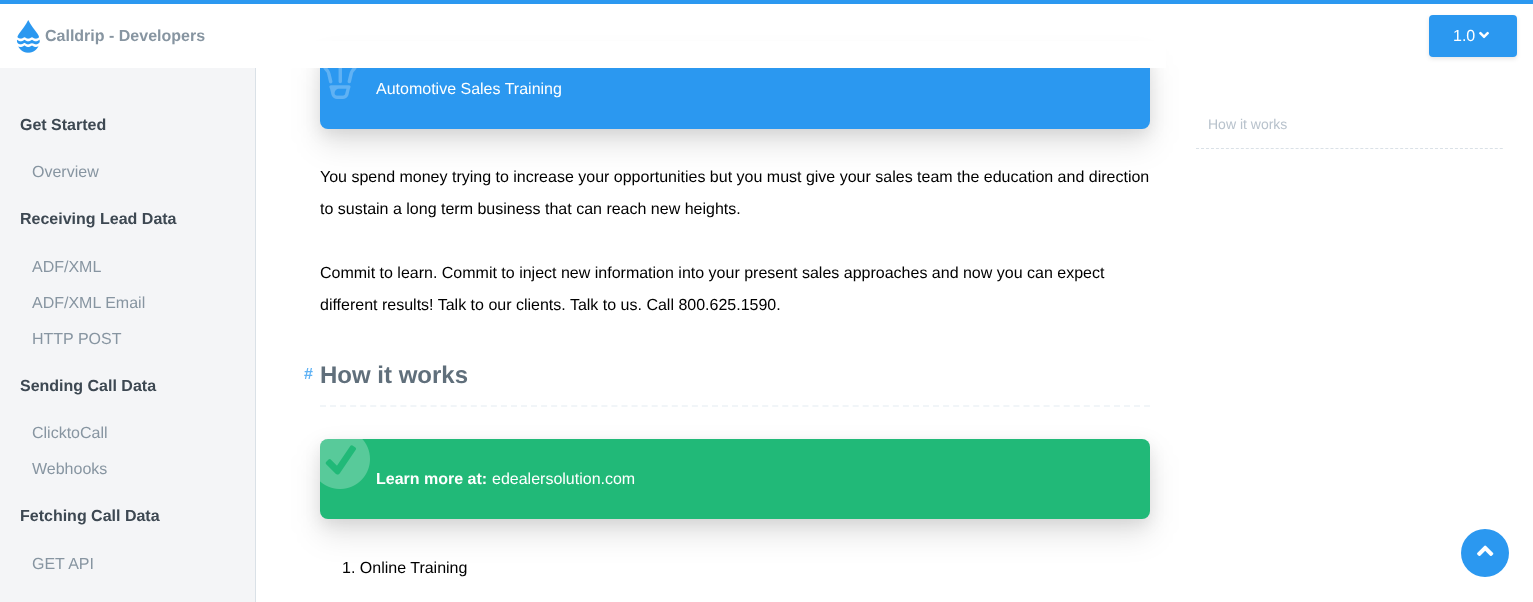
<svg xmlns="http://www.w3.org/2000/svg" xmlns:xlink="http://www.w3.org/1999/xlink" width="1533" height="602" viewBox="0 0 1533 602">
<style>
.cls-1{font:bold 16px Liberation Sans;fill:#8795a1}
.cls-2{font:16px Liberation Sans;fill:#ffffff}
.cls-3{font:bold 16px Liberation Sans;fill:#3d4852}
.cls-4{font:16px Liberation Sans;fill:#8795a1}
.cls-5{font:14px Liberation Sans;fill:#b8c2cc}
.cls-6{font:16px Liberation Sans;fill:#000000}
.cls-7{font:bold 16px Liberation Sans;fill:#60b2f4}
.cls-8{font:bold 24px Liberation Sans;fill:#606f7b}
.cls-9{font:bold 16px Liberation Sans;fill:#ffffff}
</style>
<rect width="100%" height="100%" fill="#ffffff"/>
<rect fill="#2b98f0" x="0" y="0" width="1533" height="4"/>
<rect fill="#dae1e7" x="255" y="64" width="1" height="538"/>
<rect fill="#000000" fill-opacity="0.08" filter="blur(7.5px)" x="320" y="54" width="830" height="80" rx="8"/>
<rect fill="#000000" fill-opacity="0.11" filter="blur(15px)" x="320" y="64" width="830" height="80" rx="8"/>
<rect fill="#2b98f0" x="320" y="49" width="830" height="80" rx="8"/>
<rect fill="#ffffff" x="255" y="41" width="911" height="27"/>
<image xlink:href="image0.png" x="16" y="20" width="24" height="33"/>
<rect fill="#000000" fill-opacity="0.1" filter="blur(2px)" x="1429" y="17" width="88" height="42" rx="4"/>
<rect fill="#2b98f0" x="1429" y="15" width="88" height="42" rx="4"/>
<image xlink:href="image1.png" x="1479" y="31" width="10" height="8"/>
<rect fill="#f4f5f7" x="0" y="68" width="255" height="534"/>
<image xlink:href="image2.png" x="323" y="68" width="34" height="31"/>
<path fill="none" stroke="#dae1e7" stroke-dasharray="3 1.98" d="M1196 148.5H1503"/>
<path fill="none" stroke="#f1f5f8" stroke-width="2" stroke-dasharray="6 4.05" d="M320 406H1150"/>
<rect fill="#000000" fill-opacity="0.08" filter="blur(7.5px)" x="320" y="444" width="830" height="80" rx="8"/>
<rect fill="#000000" fill-opacity="0.11" filter="blur(15px)" x="320" y="454" width="830" height="80" rx="8"/>
<rect fill="#21b978" x="320" y="439" width="830" height="80" rx="8"/>
<image xlink:href="image3.png" x="320" y="439" width="50" height="50"/>
<circle fill="#2b98f0" cx="1485" cy="553" r="24"/>
<image xlink:href="image4.png" x="1477" y="545" width="17" height="11"/>
<text class="cls-1" x="45" y="41">Calldrip - Developers</text>
<text class="cls-2" x="1453" y="41">1.0</text>
<text class="cls-3" x="20" y="130">Get Started</text>
<text class="cls-4" x="32" y="177">Overview</text>
<text class="cls-3" x="20" y="224">Receiving Lead Data</text>
<text class="cls-4" x="32" y="272">ADF/XML</text>
<text class="cls-4" x="32" y="308">ADF/XML Email</text>
<text class="cls-4" x="32" y="344">HTTP POST</text>
<text class="cls-3" x="20" y="391">Sending Call Data</text>
<text class="cls-4" x="32" y="438">ClicktoCall</text>
<text class="cls-4" x="32" y="474">Webhooks</text>
<text class="cls-3" x="20" y="521">Fetching Call Data</text>
<text class="cls-4" x="32" y="569">GET API</text>
<text class="cls-2" x="376" y="94">Automotive Sales Training</text>
<text class="cls-5" x="1208" y="129">How it works</text>
<text class="cls-6" x="320" y="182">You spend money trying to increase your opportunities but you must give your sales team the education and direction</text>
<text class="cls-6" x="320" y="214">to sustain a long term business that can reach new heights.</text>
<text class="cls-6" x="320" y="278">Commit to learn. Commit to inject new information into your present sales approaches and now you can expect</text>
<text class="cls-6" x="320" y="310">different results! Talk to our clients. Talk to us. Call 800.625.1590.</text>
<text class="cls-7" x="304" y="379">#</text>
<text class="cls-8" x="320" y="383">How it works</text>
<text class="cls-9" x="376" y="484">Learn more at:</text>
<text class="cls-2" x="492" y="484">edealersolution.com</text>
<text class="cls-6" x="342" y="573">1. Online Training</text>
</svg>
